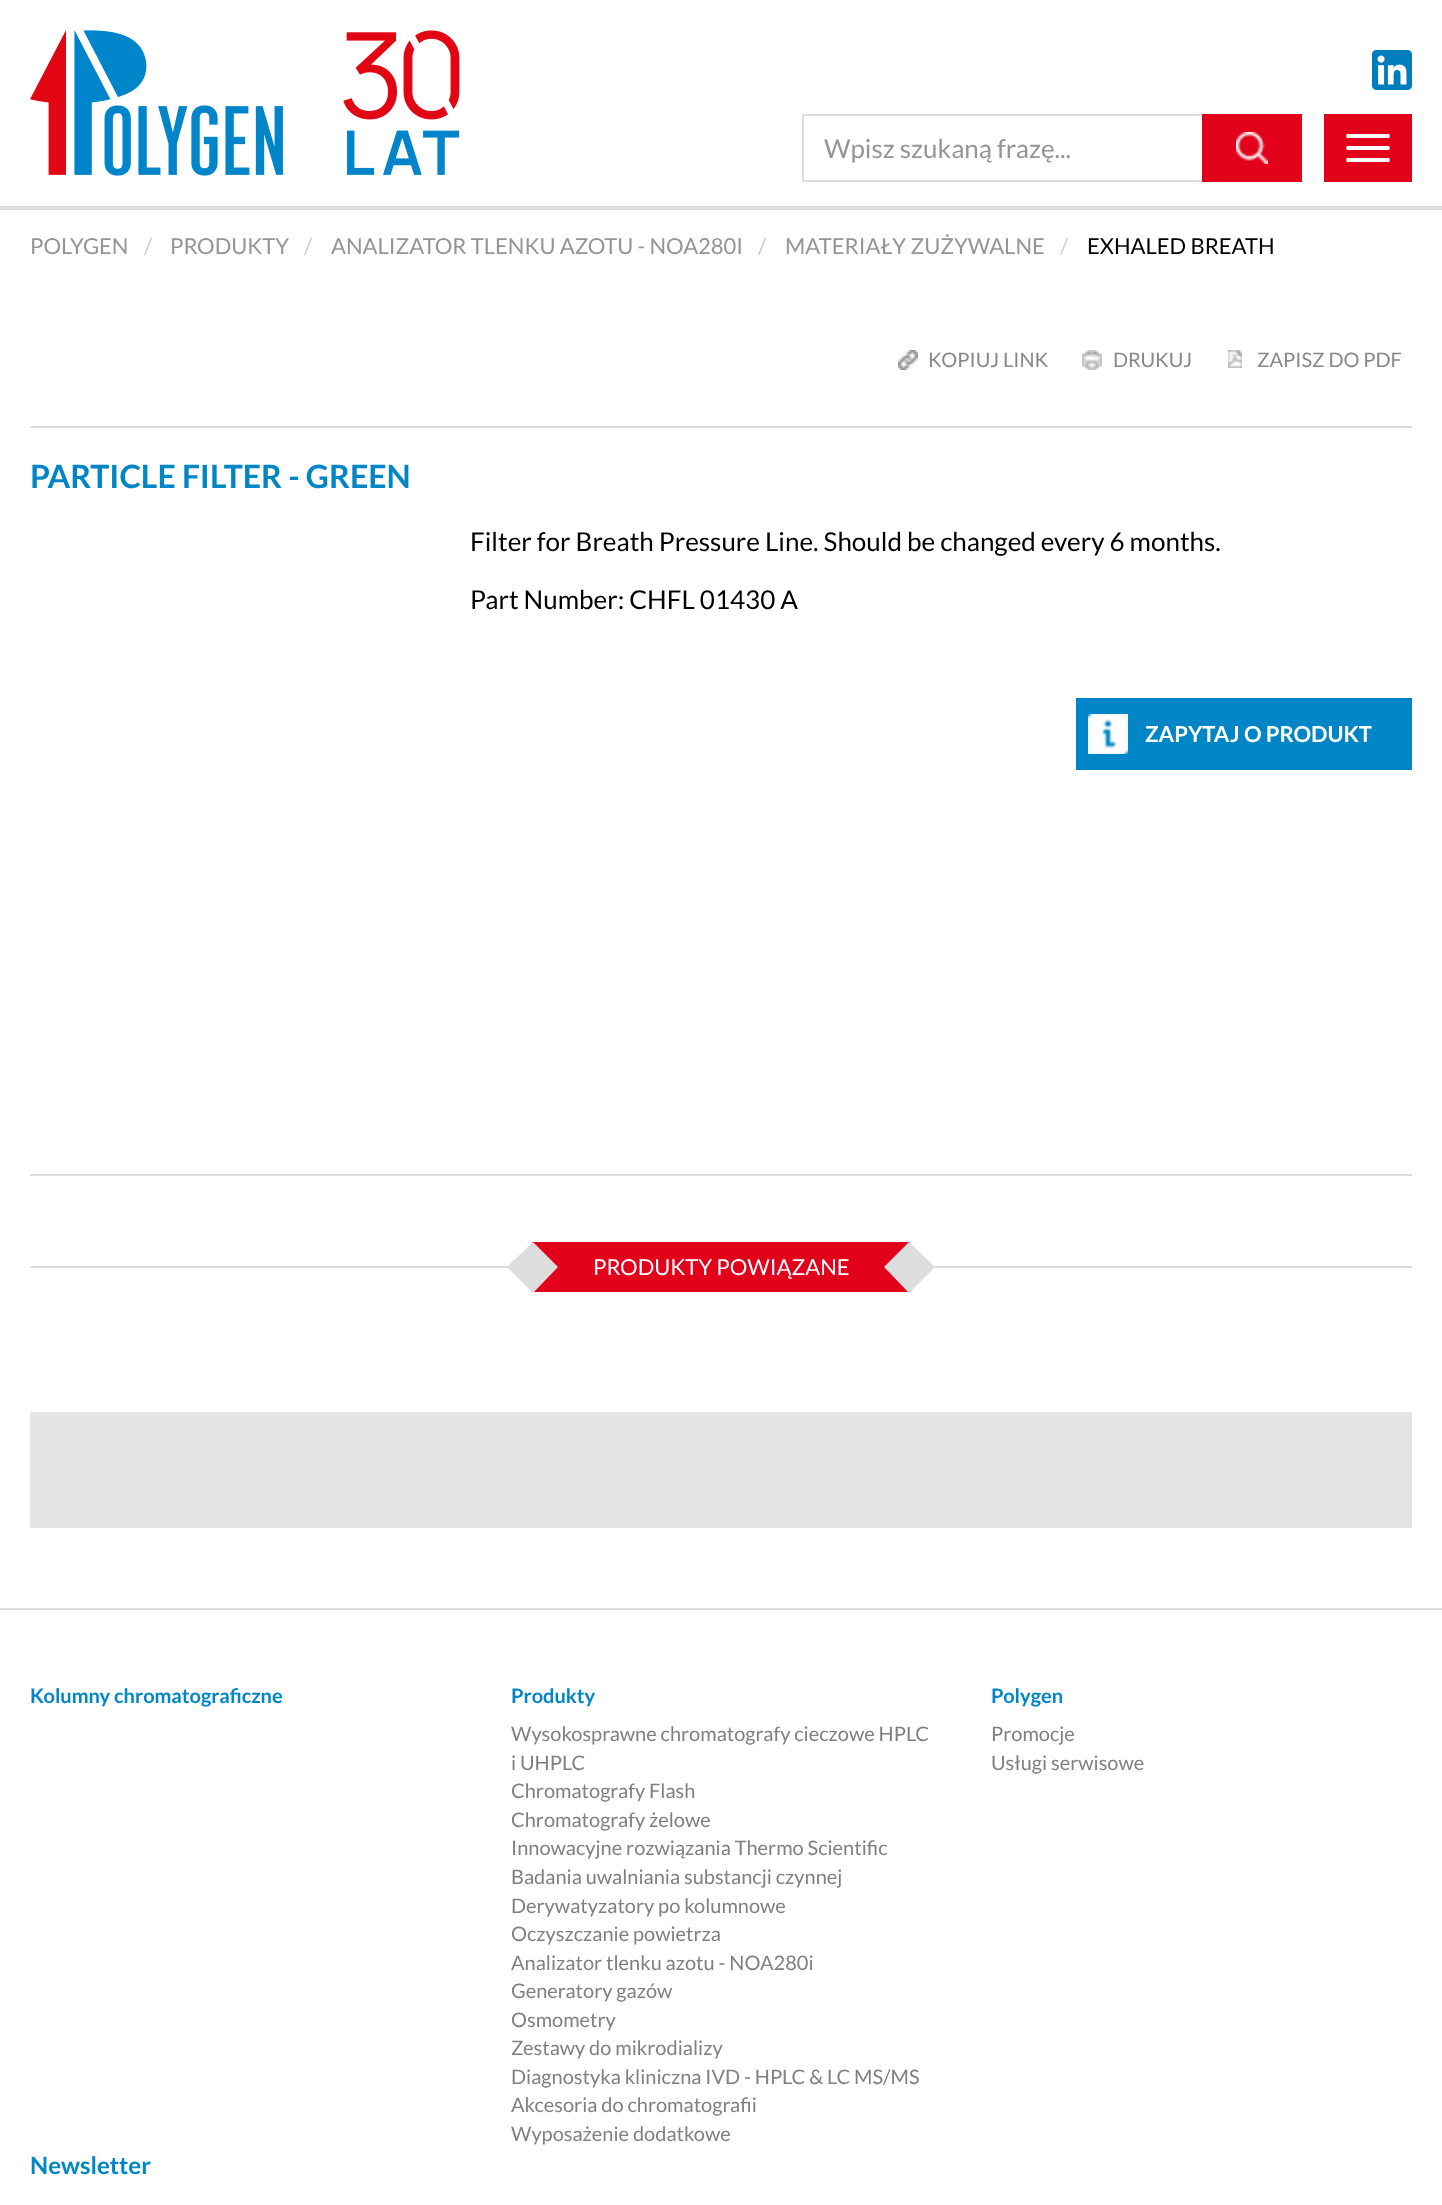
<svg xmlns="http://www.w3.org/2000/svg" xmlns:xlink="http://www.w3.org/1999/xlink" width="1442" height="2205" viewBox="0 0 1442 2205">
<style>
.cls-1{font:26px Lato;fill:#969595}
.cls-2{font:22px Lato;fill:#969595}
.cls-3{font:22px Lato;fill:#cccccc}
.cls-4{font:22px Lato;fill:#000000}
.cls-5{font:20px Lato;fill:#888888}
.cls-6{font:bold 32px Lato;fill:#0086c6}
.cls-7{font:26px Lato;fill:#000000}
.cls-8{font:bold 22px Lato;fill:#ffffff}
.cls-9{font:22px Lato;fill:#ffffff}
.cls-10{font:bold 20px Lato;fill:#0086c6}
.cls-11{font:20px Lato;fill:#808080}
.cls-12{font:bold 24px Lato;fill:#0086c6}
</style>
<rect width="100%" height="100%" fill="#ffffff"/>
<rect fill="#dddddd" x="0" y="206" width="1442" height="4"/>
<rect fill="#e2001a" x="1324" y="114" width="88" height="68"/>
<rect fill="#ffffff" x="1346" y="134" width="44" height="4" rx="2"/>
<rect fill="#ffffff" x="1346" y="146" width="44" height="4" rx="2"/>
<rect fill="#ffffff" x="1346" y="158" width="44" height="4" rx="2"/>
<image xlink:href="image0.png" x="30" y="30" width="430" height="146"/>
<image xlink:href="image1.png" x="1372" y="50" width="40" height="40"/>
<rect fill="#dddddd" x="802" y="114" width="400" height="2"/>
<rect fill="#dddddd" x="802" y="180" width="400" height="2"/>
<rect fill="#dddddd" x="802" y="114" width="2" height="68"/>
<rect fill="#e2001a" x="1202" y="114" width="100" height="68"/>
<image xlink:href="image2.png" x="1236" y="132" width="32" height="32"/>
<rect fill="#dddddd" x="30" y="426" width="1382" height="2"/>
<image xlink:href="image3.png" x="898" y="350" width="20" height="20"/>
<image xlink:href="image4.png" x="1082" y="350" width="20" height="20"/>
<image xlink:href="image5.png" x="1228" y="350" width="14" height="18"/>
<rect fill="#0086c6" x="1076" y="698" width="336" height="72"/>
<image xlink:href="image6.png" x="1088" y="714" width="40" height="40"/>
<rect fill="#dddddd" x="30" y="1174" width="1382" height="2"/>
<rect fill="#dddddd" x="30" y="1266" width="1382" height="2"/>
<rect fill="#e2001a" x="532" y="1242" width="378" height="50"/>
<path fill="#dddddd" d="M533 1242L558 1267L533 1293L507 1267Z"/>
<path fill="#dddddd" d="M909 1242L935 1267L909 1293L884 1267Z"/>
<rect fill="#e5e5e5" x="30" y="1412" width="1382" height="116"/>
<rect fill="#dddddd" x="0" y="1608" width="1442" height="2"/>
<text class="cls-1" x="824" y="158">Wpisz szukaną frazę...</text>
<text class="cls-2" x="30" y="254">POLYGEN</text>
<text class="cls-3" x="144" y="254">/</text>
<text class="cls-2" x="170" y="254">PRODUKTY</text>
<text class="cls-3" x="304" y="254">/</text>
<text class="cls-2" x="331" y="254">ANALIZATOR TLENKU AZOTU - NOA280I</text>
<text class="cls-3" x="758" y="254">/</text>
<text class="cls-2" x="785" y="254">MATERIAŁY ZUŻYWALNE</text>
<text class="cls-3" x="1060" y="254">/</text>
<text class="cls-4" x="1087" y="254">EXHALED BREATH</text>
<text class="cls-5" x="928" y="367">KOPIUJ LINK</text>
<text class="cls-5" x="1113" y="367">DRUKUJ</text>
<text class="cls-5" x="1257" y="367">ZAPISZ DO PDF</text>
<text class="cls-6" x="30" y="488">PARTICLE FILTER - GREEN</text>
<text class="cls-7" x="470" y="551">Filter for Breath Pressure Line. Should be changed every 6 months.</text>
<text class="cls-7" x="470" y="609">Part Number: CHFL 01430 A</text>
<text class="cls-8" x="1145" y="742">ZAPYTAJ O PRODUKT</text>
<text class="cls-9" x="593" y="1275">PRODUKTY POWIĄZANE</text>
<text class="cls-10" x="30" y="1703">Kolumny chromatograficzne</text>
<text class="cls-10" x="511" y="1703">Produkty</text>
<text class="cls-11"><tspan x="511" y="1741">Wysokosprawne chromatografy cieczowe HPLC</tspan><tspan x="511" y="1770">i UHPLC</tspan><tspan x="511" y="1798">Chromatografy Flash</tspan><tspan x="511" y="1827">Chromatografy żelowe</tspan><tspan x="511" y="1855">Innowacyjne rozwiązania Thermo Scientific</tspan><tspan x="511" y="1884">Badania uwalniania substancji czynnej</tspan><tspan x="511" y="1913">Derywatyzatory po kolumnowe</tspan><tspan x="511" y="1941">Oczyszczanie powietrza</tspan><tspan x="511" y="1970">Analizator tlenku azotu - NOA280i</tspan><tspan x="511" y="1998">Generatory gazów</tspan><tspan x="511" y="2027">Osmometry</tspan><tspan x="511" y="2055">Zestawy do mikrodializy</tspan><tspan x="511" y="2084">Diagnostyka kliniczna IVD - HPLC &amp; LC MS/MS</tspan><tspan x="511" y="2112">Akcesoria do chromatografii</tspan><tspan x="511" y="2141">Wyposażenie dodatkowe</tspan></text>
<text class="cls-10" x="991" y="1703">Polygen</text>
<text class="cls-11"><tspan x="991" y="1741">Promocje</tspan><tspan x="991" y="1770">Usługi serwisowe</tspan></text>
<text class="cls-12" x="30" y="2174">Newsletter</text>
</svg>
